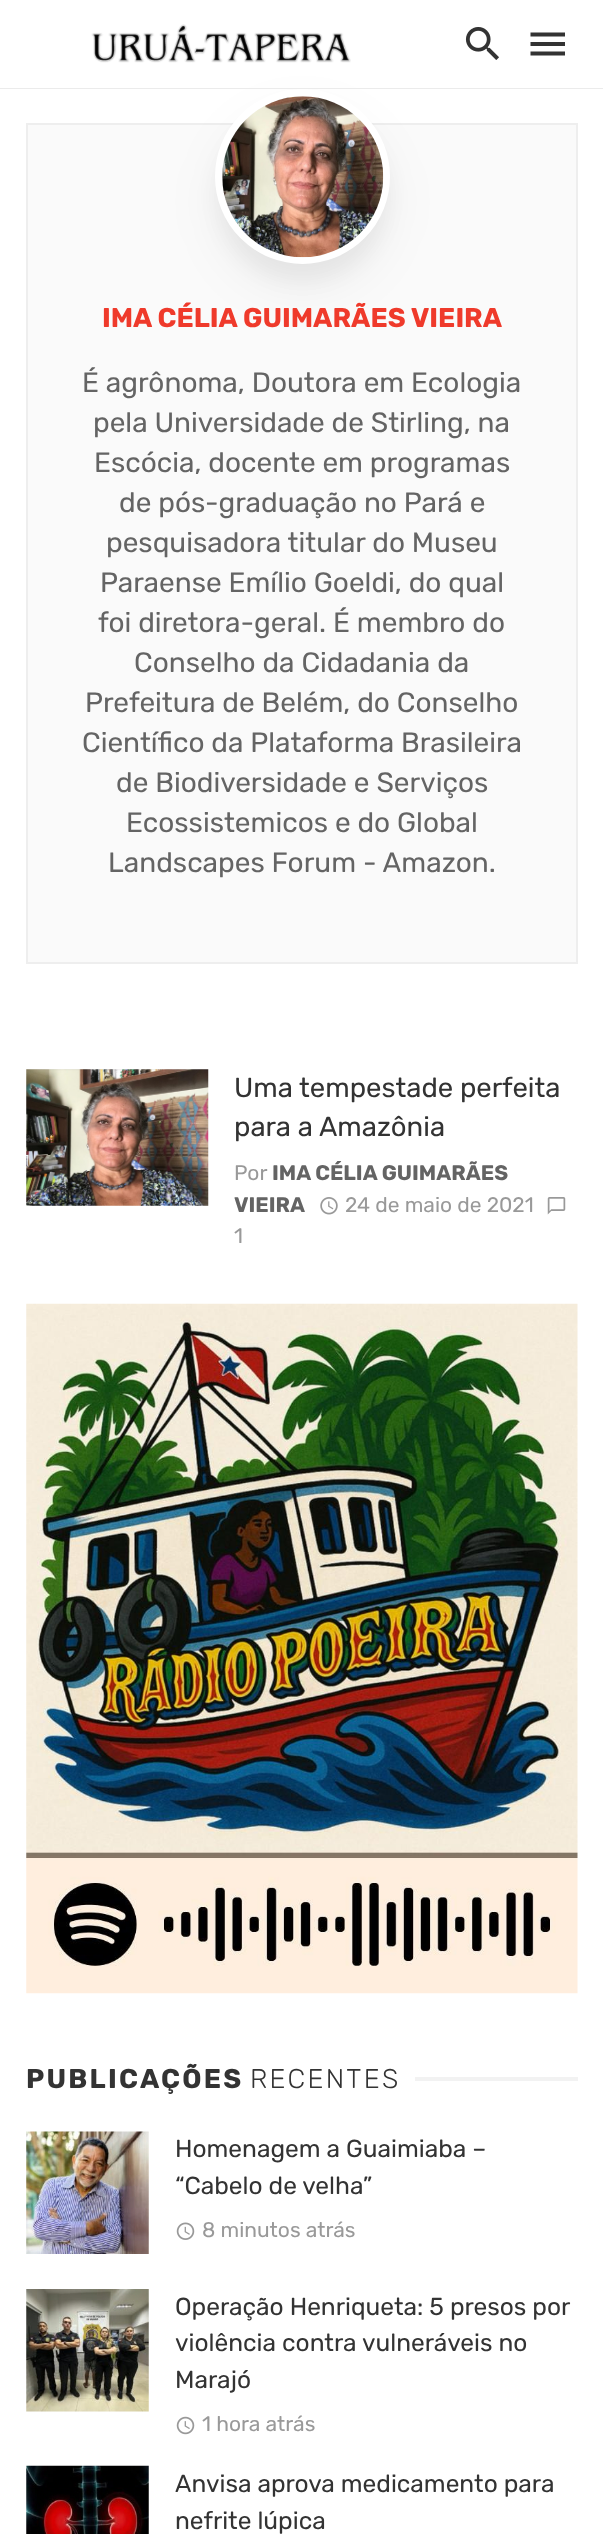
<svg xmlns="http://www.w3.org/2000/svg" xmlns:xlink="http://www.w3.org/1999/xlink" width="603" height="2534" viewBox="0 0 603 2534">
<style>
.cls-1{font:bold 27px Rubik;fill:#ef3a2b}
.cls-2{font:28px Rubik;fill:#646464}
.cls-3{font:27.5px Rubik;fill:#333333}
.cls-4{font:21px Rubik;fill:#999999}
.cls-5{font:bold 21px Rubik;fill:#646464}
.cls-6{font:bold 27px Rubik;letter-spacing:2.25px;fill:#333333}
.cls-7{font:300 27px Rubik;letter-spacing:2.25px;fill:#333333}
.cls-8{font:24.5px Rubik;fill:#333333}
</style>
<rect width="100%" height="100%" fill="#ffffff"/>
<rect fill="#fafafa" stroke="#eeeeee" stroke-width="2" x="27" y="124" width="550" height="839"/>
<rect fill="#000000" fill-opacity="0.04" filter="blur(9px)" x="215" y="107" width="175" height="175" rx="87.5"/>
<rect fill="#000000" fill-opacity="0.05" filter="blur(24.5px)" x="215" y="114" width="175" height="175" rx="87.5"/>
<path fill="#f5f5f5" d="M0 88V89H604V2V88Z"/>
<path fill="#000000" fill-opacity="0.04" d="M0 88V89H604V2V88Z"/>
<image xlink:href="image0.png" x="91" y="24" width="260" height="39"/>
<image xlink:href="image1.png" x="465" y="27" width="34" height="33"/>
<path fill="#333333" d="M530.5 32.5H565V36.5H530.5ZM530.5 46V42H565V46ZM530.5 55.5V51.5H565V55.5Z"/>
<circle fill="none" stroke="#ffffff" stroke-width="7" cx="302.5" cy="176.5" r="84"/>
<image xlink:href="image2.png" x="222" y="96" width="162" height="162"/>
<image xlink:href="image3.png" x="26" y="1069" width="183" height="137"/>
<image xlink:href="image4.png" x="320" y="1197" width="18" height="18"/>
<image xlink:href="image5.png" x="547" y="1197" width="19" height="18"/>
<image xlink:href="image6.png" x="26" y="1303" width="552" height="691"/>
<rect fill="#f2f2f2" x="415" y="2077" width="163" height="4"/>
<image xlink:href="image7.png" x="26" y="2131" width="123" height="123"/>
<image xlink:href="image8.png" x="176" y="2222" width="19" height="18"/>
<image xlink:href="image9.png" x="26" y="2289" width="123" height="123"/>
<image xlink:href="image10.png" x="176" y="2416" width="19" height="19"/>
<image xlink:href="image11.png" x="26" y="2465" width="123" height="69"/>
<text class="cls-1" x="102" y="327">IMA CÉLIA GUIMARÃES VIEIRA</text>
<text class="cls-2" x="82" y="392">É agrônoma, Doutora em Ecologia</text>
<text class="cls-2" x="93" y="432">pela Universidade de Stirling, na</text>
<text class="cls-2" x="94" y="472">Escócia, docente em programas</text>
<text class="cls-2" x="119" y="512">de pós-graduação no Pará e</text>
<text class="cls-2" x="106" y="552">pesquisadora titular do Museu</text>
<text class="cls-2" x="100" y="592">Paraense Emílio Goeldi, do qual</text>
<text class="cls-2" x="98" y="632">foi diretora-geral. É membro do</text>
<text class="cls-2" x="134" y="672">Conselho da Cidadania da</text>
<text class="cls-2" x="85" y="712">Prefeitura de Belém, do Conselho</text>
<text class="cls-2" x="82" y="752">Científico da Plataforma Brasileira</text>
<text class="cls-2" x="116" y="792">de Biodiversidade e Serviços</text>
<text class="cls-2" x="126" y="832">Ecossistemicos e do Global</text>
<text class="cls-2" x="108" y="872">Landscapes Forum - Amazon.</text>
<text class="cls-3"><tspan x="234" y="1097">Uma tempestade perfeita</tspan><tspan x="234" y="1136">para a Amazônia</tspan></text>
<text class="cls-4" x="234" y="1180">Por</text>
<text class="cls-5" x="272" y="1180">IMA CÉLIA GUIMARÃES</text>
<text class="cls-5" x="234" y="1212">VIEIRA</text>
<text class="cls-4" x="345" y="1212">24 de maio de 2021</text>
<text class="cls-4" x="234" y="1243">1</text>
<text class="cls-6" x="26" y="2088">PUBLICAÇÕES</text>
<text class="cls-7" x="250" y="2088">RECENTES</text>
<text class="cls-8"><tspan x="175" y="2157">Homenagem a Guaimiaba –</tspan><tspan x="175" y="2194">“Cabelo de velha”</tspan></text>
<text class="cls-4" x="202" y="2237">8 minutos atrás</text>
<text class="cls-8"><tspan x="175" y="2315">Operação Henriqueta: 5 presos por</tspan><tspan x="175" y="2351">violência contra vulneráveis no</tspan><tspan x="175" y="2388">Marajó</tspan></text>
<text class="cls-4" x="202" y="2431">1 hora atrás</text>
<text class="cls-8"><tspan x="175" y="2492">Anvisa aprova medicamento para</tspan><tspan x="175" y="2529">nefrite lúpica</tspan></text>
</svg>
